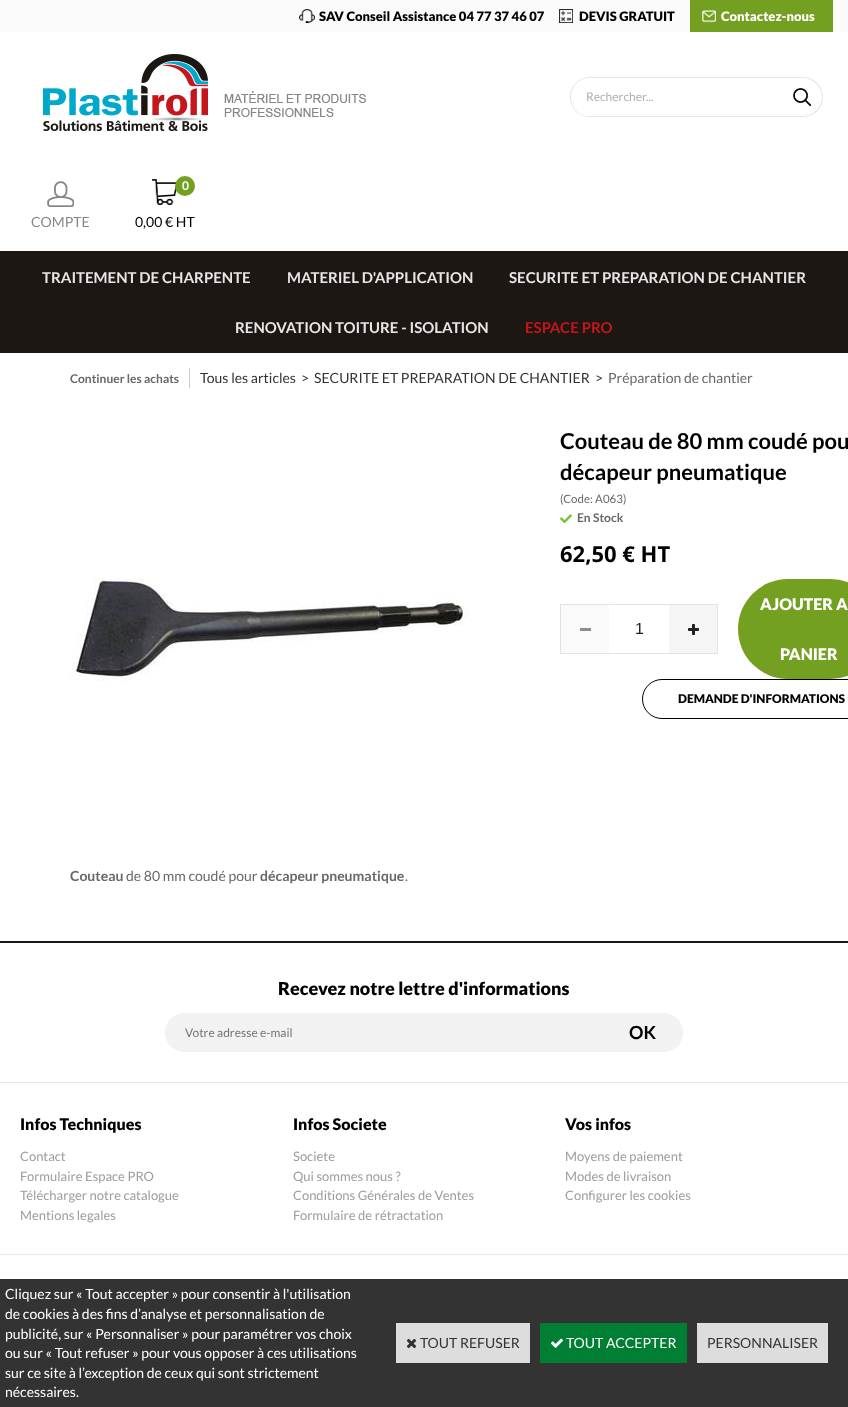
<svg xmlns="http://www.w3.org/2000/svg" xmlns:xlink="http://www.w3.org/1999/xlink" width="848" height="1407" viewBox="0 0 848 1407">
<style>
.cls-1{font:900 13px Lato;fill:#000000}
.cls-2{font:900 13px Lato;fill:#ffffff}
.cls-3{font:12px Lato;fill:#b0b0b0}
.cls-4{font:14px Lato;fill:#868686}
.cls-5{font:bold 12px Lato;fill:#ffffff}
.cls-6{font:14px Lato;fill:#000000}
.cls-7{font:bold 15px Lato;fill:#e6e6e6}
.cls-8{font:bold 15px Lato;fill:#c4161c}
.cls-9{font:bold 12px Lato;fill:#696767}
.cls-10{font:14px Lato;fill:#333333}
.cls-11{font:14px Lato;fill:#696767}
.cls-12{font:bold 22px Lato;fill:#000000}
.cls-13{font:11.5px Lato;fill:#696767}
.cls-14{font:bold 22px Open Sans;fill:#000000}
.cls-15{font:16px Liberation Sans;fill:#212121}
.cls-16{font:900 16px Lato;fill:#ffffff}
.cls-17{font:900 12px Lato;fill:#000000}
.cls-18{font:bold 14px Lato;fill:#696767}
.cls-19{font:900 18px Lato;fill:#000000}
.cls-20{font:12px Lato;fill:#757575}
.cls-21{font:bold 18px Lato;fill:#000000}
.cls-22{font:900 16px Lato;fill:#000000}
.cls-23{font:13px Lato;fill:#9d9d9d}
.cls-24{font:14px Lato;fill:#ffffff}
</style>
<rect width="100%" height="100%" fill="#ffffff"/>
<rect fill="#fbfbfb" x="0" y="0" width="848" height="32"/>
<image xlink:href="image0.png" x="299" y="9" width="16" height="14"/>
<image xlink:href="image1.png" x="559" y="9" width="14" height="14"/>
<rect fill="#73a020" x="690" y="0" width="143" height="32"/>
<image xlink:href="image2.png" x="702" y="10" width="14" height="13"/>
<image xlink:href="image3.png" x="43" y="54" width="323" height="77"/>
<path fill="#e6e6e6" fill-rule="evenodd" d="M590 77H782V117H590C579 117 570 108 570 97C570 86 579 77 590 77ZM590 78H782V116H586C564 111 567 78 590 78Z"/>
<image xlink:href="image4.png" x="793" y="88" width="18" height="18"/>
<path fill="#e6e6e6" fill-rule="evenodd" d="M782 77H803C814 77 823 86 823 97C823 108 814 117 803 117H782ZM782 78H803C813 78 822 87 822 97C822 107 813 116 803 116H782Z"/>
<image xlink:href="image5.png" x="47" y="181" width="27" height="26"/>
<image xlink:href="image6.png" x="152" y="179" width="25" height="26"/>
<circle fill="#73a020" cx="185" cy="186" r="10"/>
<rect fill="#1d1714" x="0" y="251" width="848" height="102"/>
<rect fill="#cccccc" x="189" y="368" width="1" height="20"/>
<image xlink:href="image7.png" x="70" y="578" width="399" height="103"/>
<image xlink:href="image8.png" x="560" y="514" width="12" height="10"/>
<rect fill="none" stroke="#e3e3e3" x="560.5" y="604.5" width="157" height="49"/>
<rect fill="#fafafa" x="561" y="605" width="48" height="48"/>
<rect fill="#8e8e8e" x="580" y="628" width="11" height="3"/>
<rect fill="#f5f5f5" x="669" y="605" width="48" height="48"/>
<image xlink:href="image9.png" x="688" y="624" width="11" height="11"/>
<rect fill="#73a020" x="738" y="579" width="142" height="100" rx="50"/>
<rect fill="none" stroke="#000000" x="642.5" y="679.5" width="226" height="39" rx="19.5"/>
<rect fill="#1d1714" x="0" y="941" width="848" height="2"/>
<rect fill="#e6e6e6" x="0" y="1082" width="848" height="1"/>
<path fill="#f2f2f2" d="M184.5 1013H605V1052H184.5C173.5 1052 165 1043.5 165 1032.5C165 1021.5 173.5 1013 184.5 1013Z"/>
<path fill="#f2f2f2" d="M603 1013H663.5C674.5 1013 683 1021.5 683 1032.5C683 1043.5 674.5 1052 663.5 1052H603Z"/>
<rect fill="#e6e6e6" x="0" y="1254" width="848" height="1"/>
<rect fill="#333333" x="0" y="1279" width="848" height="128"/>
<rect fill="#dddddd" x="396" y="1323" width="134" height="40"/>
<image xlink:href="image10.png" x="406" y="1338" width="11" height="11"/>
<rect fill="#007e33" x="540" y="1323" width="147" height="40"/>
<image xlink:href="image11.png" x="551" y="1338" width="12" height="10"/>
<rect fill="#dddddd" x="697" y="1323" width="131" height="40"/>
<text class="cls-1" x="319" y="21">SAV Conseil Assistance 04 77 37 46 07</text>
<text class="cls-1" x="579" y="21">DEVIS GRATUIT</text>
<text class="cls-2" x="721" y="21">Contactez-nous</text>
<text class="cls-3" x="586" y="101">Rechercher...</text>
<text class="cls-4" x="31" y="227">COMPTE</text>
<text class="cls-5" x="182" y="190">0</text>
<text class="cls-6" x="135" y="227">0,00 € HT</text>
<text class="cls-7" x="42" y="283">TRAITEMENT DE CHARPENTE</text>
<text class="cls-7" x="287" y="283">MATERIEL D'APPLICATION</text>
<text class="cls-7" x="509" y="283">SECURITE ET PREPARATION DE CHANTIER</text>
<text class="cls-7" x="235" y="333">RENOVATION TOITURE - ISOLATION</text>
<text class="cls-8" x="525" y="333">ESPACE PRO</text>
<text class="cls-9" x="70" y="383">Continuer les achats</text>
<text class="cls-10" x="200" y="383">Tous les articles</text>
<text class="cls-10" x="301" y="383">&gt;</text>
<text class="cls-10" x="314" y="383">SECURITE ET PREPARATION DE CHANTIER</text>
<text class="cls-10" x="595" y="383">&gt;</text>
<text class="cls-11" x="608" y="383">Préparation de chantier</text>
<text class="cls-12"><tspan x="560" y="449">Couteau de 80 mm coudé pou</tspan><tspan x="560" y="480">décapeur pneumatique</tspan></text>
<text class="cls-13" x="560" y="503">(Code: A063)</text>
<text class="cls-9" x="577" y="522">En Stock</text>
<text class="cls-14" x="560" y="562">62,50 € HT</text>
<text class="cls-15" x="635" y="634">1</text>
<text class="cls-16" x="760" y="610">AJOUTER A</text>
<text class="cls-16" x="780" y="660">PANIER</text>
<text class="cls-17" x="678" y="703">DEMANDE D'INFORMATIONS</text>
<text class="cls-18" x="70" y="881">Couteau</text>
<text class="cls-11" x="126" y="881">de 80 mm coudé pour</text>
<text class="cls-18" x="260" y="881">décapeur pneumatique</text>
<text class="cls-11" x="405" y="881">.</text>
<text class="cls-19" x="278" y="995">Recevez notre lettre d'informations</text>
<text class="cls-20" x="185" y="1037">Votre adresse e-mail</text>
<text class="cls-21" x="629" y="1039">OK</text>
<text class="cls-22" x="20" y="1130">Infos Techniques</text>
<text class="cls-23"><tspan x="20" y="1161">Contact</tspan><tspan x="20" y="1181">Formulaire Espace PRO</tspan><tspan x="20" y="1200">Télécharger notre catalogue</tspan><tspan x="20" y="1220">Mentions legales</tspan></text>
<text class="cls-22" x="293" y="1130">Infos Societe</text>
<text class="cls-23"><tspan x="293" y="1161">Societe</tspan><tspan x="293" y="1181">Qui sommes nous ?</tspan><tspan x="293" y="1200">Conditions Générales de Ventes</tspan><tspan x="293" y="1220">Formulaire de rétractation</tspan></text>
<text class="cls-22" x="565" y="1130">Vos infos</text>
<text class="cls-23"><tspan x="565" y="1161">Moyens de paiement</tspan><tspan x="565" y="1181">Modes de livraison</tspan><tspan x="565" y="1200">Configurer les cookies</tspan></text>
<text class="cls-24"><tspan x="5" y="1299">Cliquez sur « Tout accepter » pour consentir à l'utilisation</tspan><tspan x="5" y="1319">de cookies à des fins d’analyse et personnalisation de</tspan><tspan x="5" y="1339">publicité, sur « Personnaliser » pour paramétrer vos choix</tspan><tspan x="5" y="1358">ou sur « Tout refuser » pour vous opposer à ces utilisations</tspan><tspan x="5" y="1378">sur ce site à l’exception de ceux qui sont strictement</tspan><tspan x="5" y="1397">nécessaires.</tspan></text>
<text class="cls-10" x="420" y="1348">TOUT REFUSER</text>
<text class="cls-24" x="566" y="1348">TOUT ACCEPTER</text>
<text class="cls-10" x="707" y="1348">PERSONNALISER</text>
</svg>
